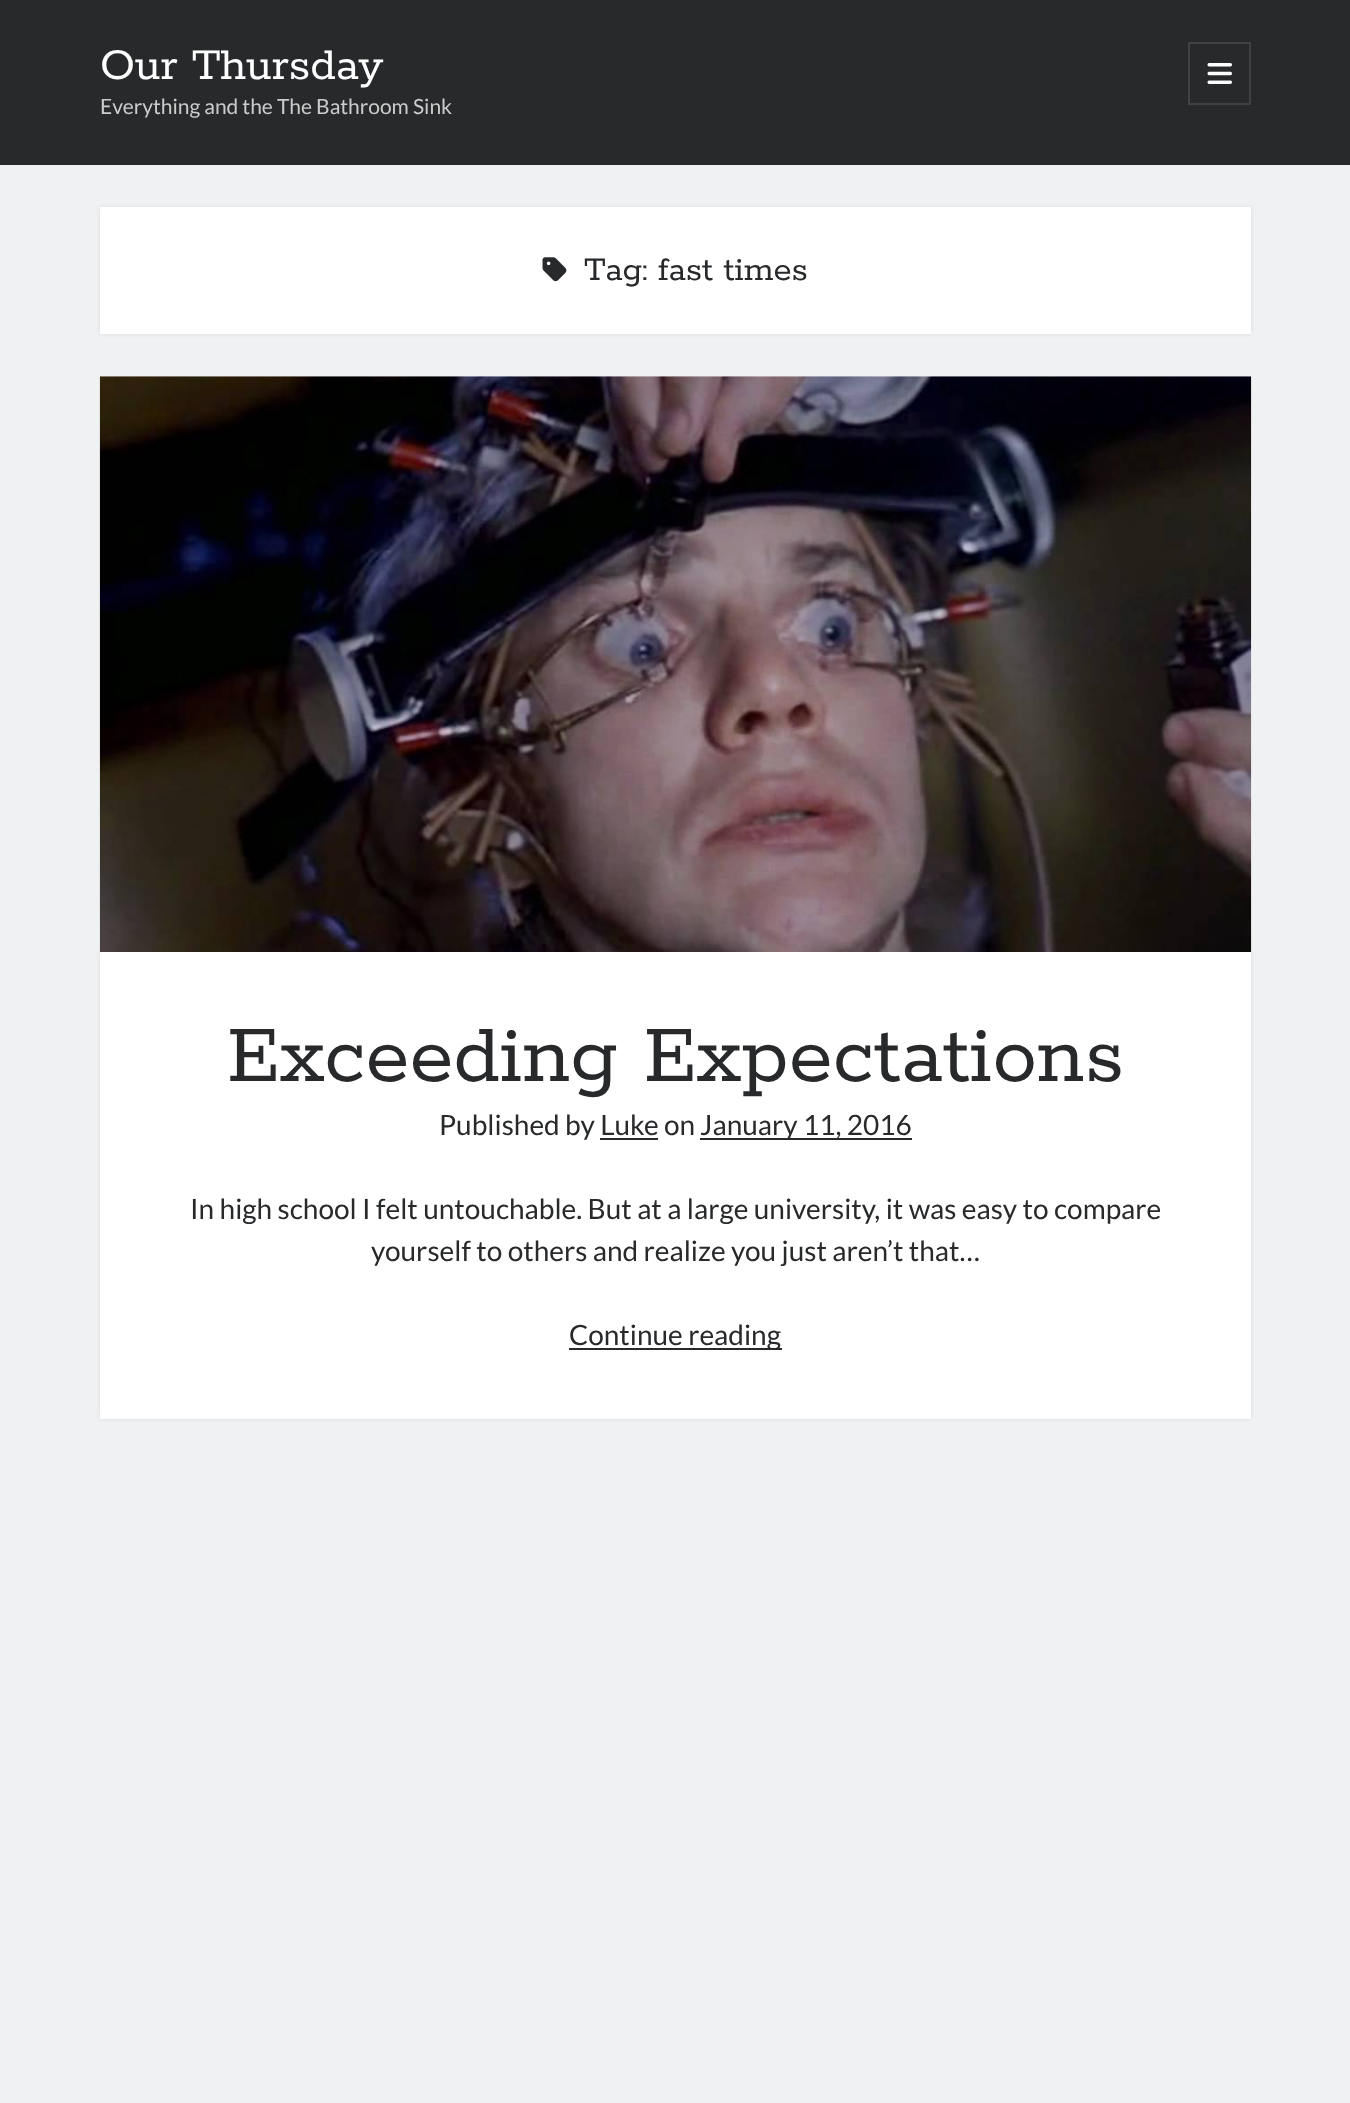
<svg xmlns="http://www.w3.org/2000/svg" xmlns:xlink="http://www.w3.org/1999/xlink" width="1350" height="2103" viewBox="0 0 1350 2103">
<style>
.cls-1{font:49px Rokkitt;fill:#ffffff}
.cls-2{font:21px Lato;fill:#cccccc}
.cls-3{font:36.75px Rokkitt;fill:#27292b}
.cls-4{font:89.25px Rokkitt;fill:#27292b}
.cls-5{font:28px Lato;fill:#27292b}
</style>
<rect width="100%" height="100%" fill="#27292b"/>
<rect fill="none" stroke="#3e4145" stroke-width="2" x="1189" y="43" width="61" height="61"/>
<image xlink:href="image0.png" x="1207" y="63" width="25" height="21"/>
<rect fill="#f0f1f2" x="0" y="165" width="1350" height="1938"/>
<rect fill="#272b2f" fill-opacity="0.1" filter="blur(2px)" x="100" y="207" width="1151" height="127"/>
<rect fill="#ffffff" x="100" y="207" width="1151" height="127"/>
<image xlink:href="image1.png" x="542" y="257" width="25" height="25"/>
<rect fill="#272b2f" fill-opacity="0.1" filter="blur(2px)" x="100" y="952" width="1151" height="467"/>
<image xlink:href="image2.png" x="99" y="376" width="1153" height="576"/>
<rect fill="#ffffff" x="100" y="952" width="1151" height="467"/>
<rect fill="#27292b" x="600" y="1138" width="58" height="2"/>
<rect fill="#27292b" x="700" y="1138" width="212" height="2"/>
<rect fill="#27292b" x="569" y="1348" width="213" height="2"/>
<text class="cls-1" x="100" y="79">Our Thursday</text>
<text class="cls-2" x="100" y="114">Everything and the The Bathroom Sink</text>
<text class="cls-3" x="584" y="280">Tag: fast times</text>
<text class="cls-4" x="227" y="1081">Exceeding Expectations</text>
<text class="cls-5" x="439" y="1135">Published by Luke on</text>
<text class="cls-5" x="700" y="1135">January 11, 2016</text>
<text class="cls-5" x="190" y="1219">In high school I felt untouchable. But at a large university, it was easy to compare</text>
<text class="cls-5" x="371" y="1261">yourself to others and realize you just aren’t that…</text>
<text class="cls-5" x="569" y="1345">Continue reading</text>
</svg>
